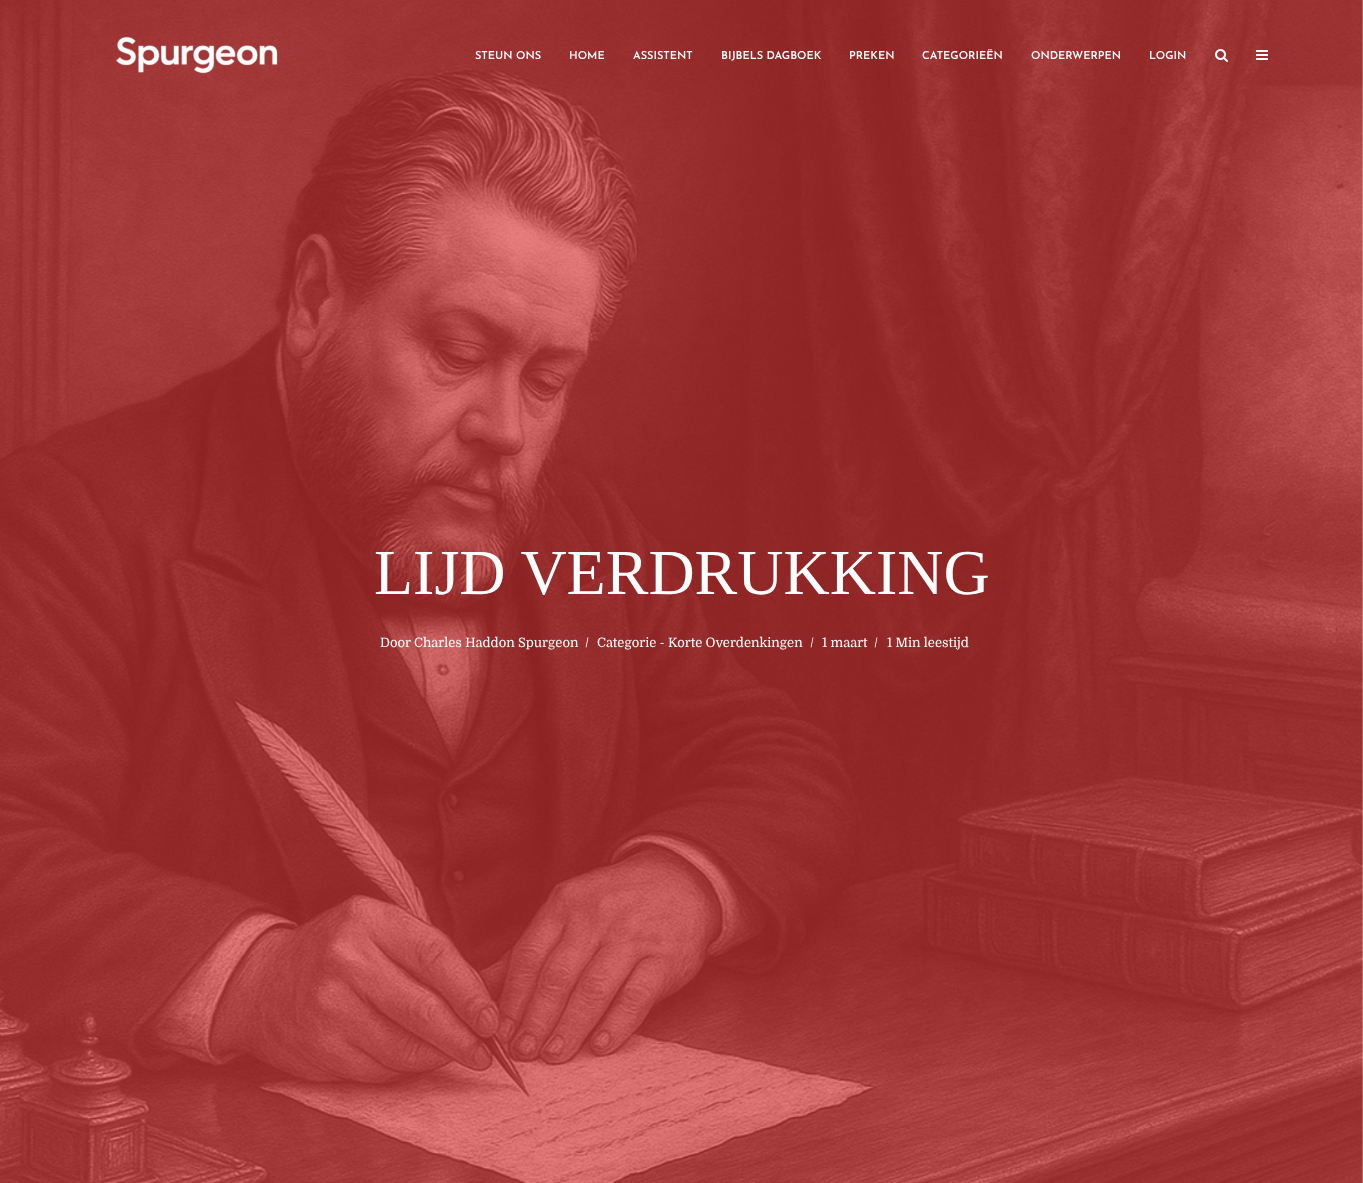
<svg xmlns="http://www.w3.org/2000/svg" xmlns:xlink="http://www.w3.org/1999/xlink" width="1363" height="1183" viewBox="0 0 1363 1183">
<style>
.cls-1{font:600 11px Josefin Sans;fill:#ffffff}
.cls-2{font:64px Liberation Serif;fill:#ffffff}
.cls-3{font:13px Domine;fill:#ffffff}
</style>
<rect width="100%" height="100%" fill="#ffffff"/>
<image xlink:href="image3.png" x="0" y="0" width="1363" height="1183"/>
<image xlink:href="image0.png" x="116" y="36" width="162" height="38"/>
<image xlink:href="image1.png" x="1215" y="49" width="13" height="13"/>
<image xlink:href="image2.png" x="1256" y="50" width="12" height="10"/>
<text class="cls-1" x="475" y="59">STEUN ONS</text>
<text class="cls-1" x="569" y="59">HOME</text>
<text class="cls-1" x="633" y="59">ASSISTENT</text>
<text class="cls-1" x="721" y="59">BIJBELS DAGBOEK</text>
<text class="cls-1" x="849" y="59">PREKEN</text>
<text class="cls-1" x="922" y="59">CATEGORIEËN</text>
<text class="cls-1" x="1031" y="59">ONDERWERPEN</text>
<text class="cls-1" x="1149" y="59">LOGIN</text>
<text class="cls-2" x="374" y="594">LIJD VERDRUKKING</text>
<text class="cls-3" x="380" y="647">Door Charles Haddon Spurgeon</text>
<text class="cls-3" x="585" y="647">/</text>
<text class="cls-3" x="597" y="647">Categorie - Korte Overdenkingen</text>
<text class="cls-3" x="810" y="647">/</text>
<text class="cls-3" x="822" y="647">1 maart</text>
<text class="cls-3" x="874" y="647">/</text>
<text class="cls-3" x="887" y="647">1 Min leestijd</text>
</svg>
